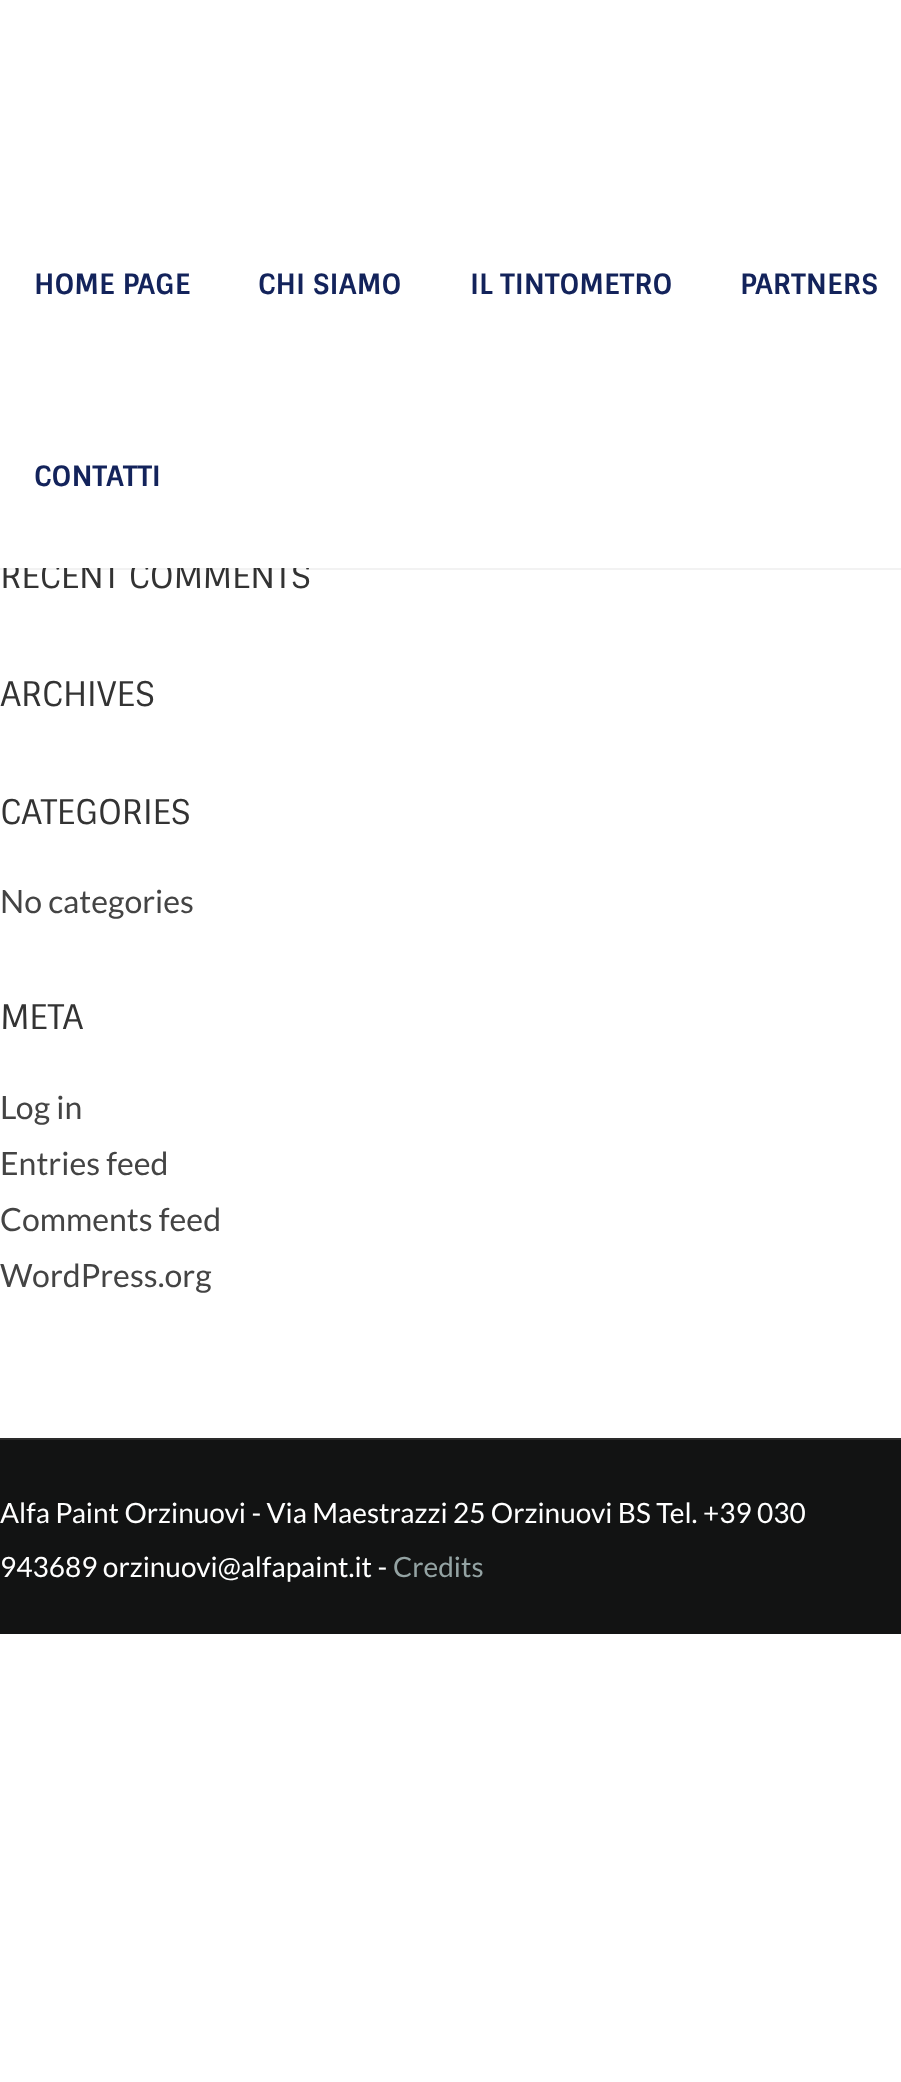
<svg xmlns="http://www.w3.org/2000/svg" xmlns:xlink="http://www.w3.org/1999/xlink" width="901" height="2082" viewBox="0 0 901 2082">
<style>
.cls-1{font:34px Sintony;letter-spacing:-0.7px;fill:#333333}
.cls-2{font:bold 28px Sintony;fill:#13235b}
.cls-3{font:32px Lato;fill:#444444}
.cls-4{font:28px Lato;fill:#ffffff}
.cls-5{font:28px Lato;fill:#94a3a3}
</style>
<rect width="100%" height="100%" fill="#ffffff"/>
<rect fill="#121313" x="0" y="1440" width="901" height="194"/>
<rect fill="#2a2a2a" x="0" y="1438" width="901" height="2"/>
<text class="cls-1" x="0" y="588">RECENT COMMENTS</text>
<rect fill="none" stroke="#000000" stroke-opacity="0.05" stroke-width="2" x="-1" y="-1" width="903" height="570"/>
<text class="cls-2" x="34" y="486">CONTATTI</text>
<text class="cls-2" x="740" y="294">PARTNERS</text>
<text class="cls-2" x="470" y="294">IL TINTOMETRO</text>
<text class="cls-2" x="258" y="294">CHI SIAMO</text>
<text class="cls-2" x="34" y="294">HOME PAGE</text>
<rect fill="#ffffff" x="3" y="562" width="306" height="6"/>
<text class="cls-1" x="0" y="706">ARCHIVES</text>
<text class="cls-1" x="0" y="824">CATEGORIES</text>
<text class="cls-3" x="0" y="913">No categories</text>
<text class="cls-1" x="0" y="1029">META</text>
<text class="cls-3"><tspan x="0" y="1119">Log in</tspan><tspan x="0" y="1175">Entries feed</tspan><tspan x="0" y="1231">Comments feed</tspan><tspan x="0" y="1287">WordPress.org</tspan></text>
<text class="cls-4"><tspan x="0" y="1523">Alfa Paint Orzinuovi - Via Maestrazzi 25 Orzinuovi BS Tel. +39 030</tspan><tspan x="0" y="1577">943689 orzinuovi@alfapaint.it -</tspan></text>
<text class="cls-5" x="393" y="1577">Credits</text>
</svg>
